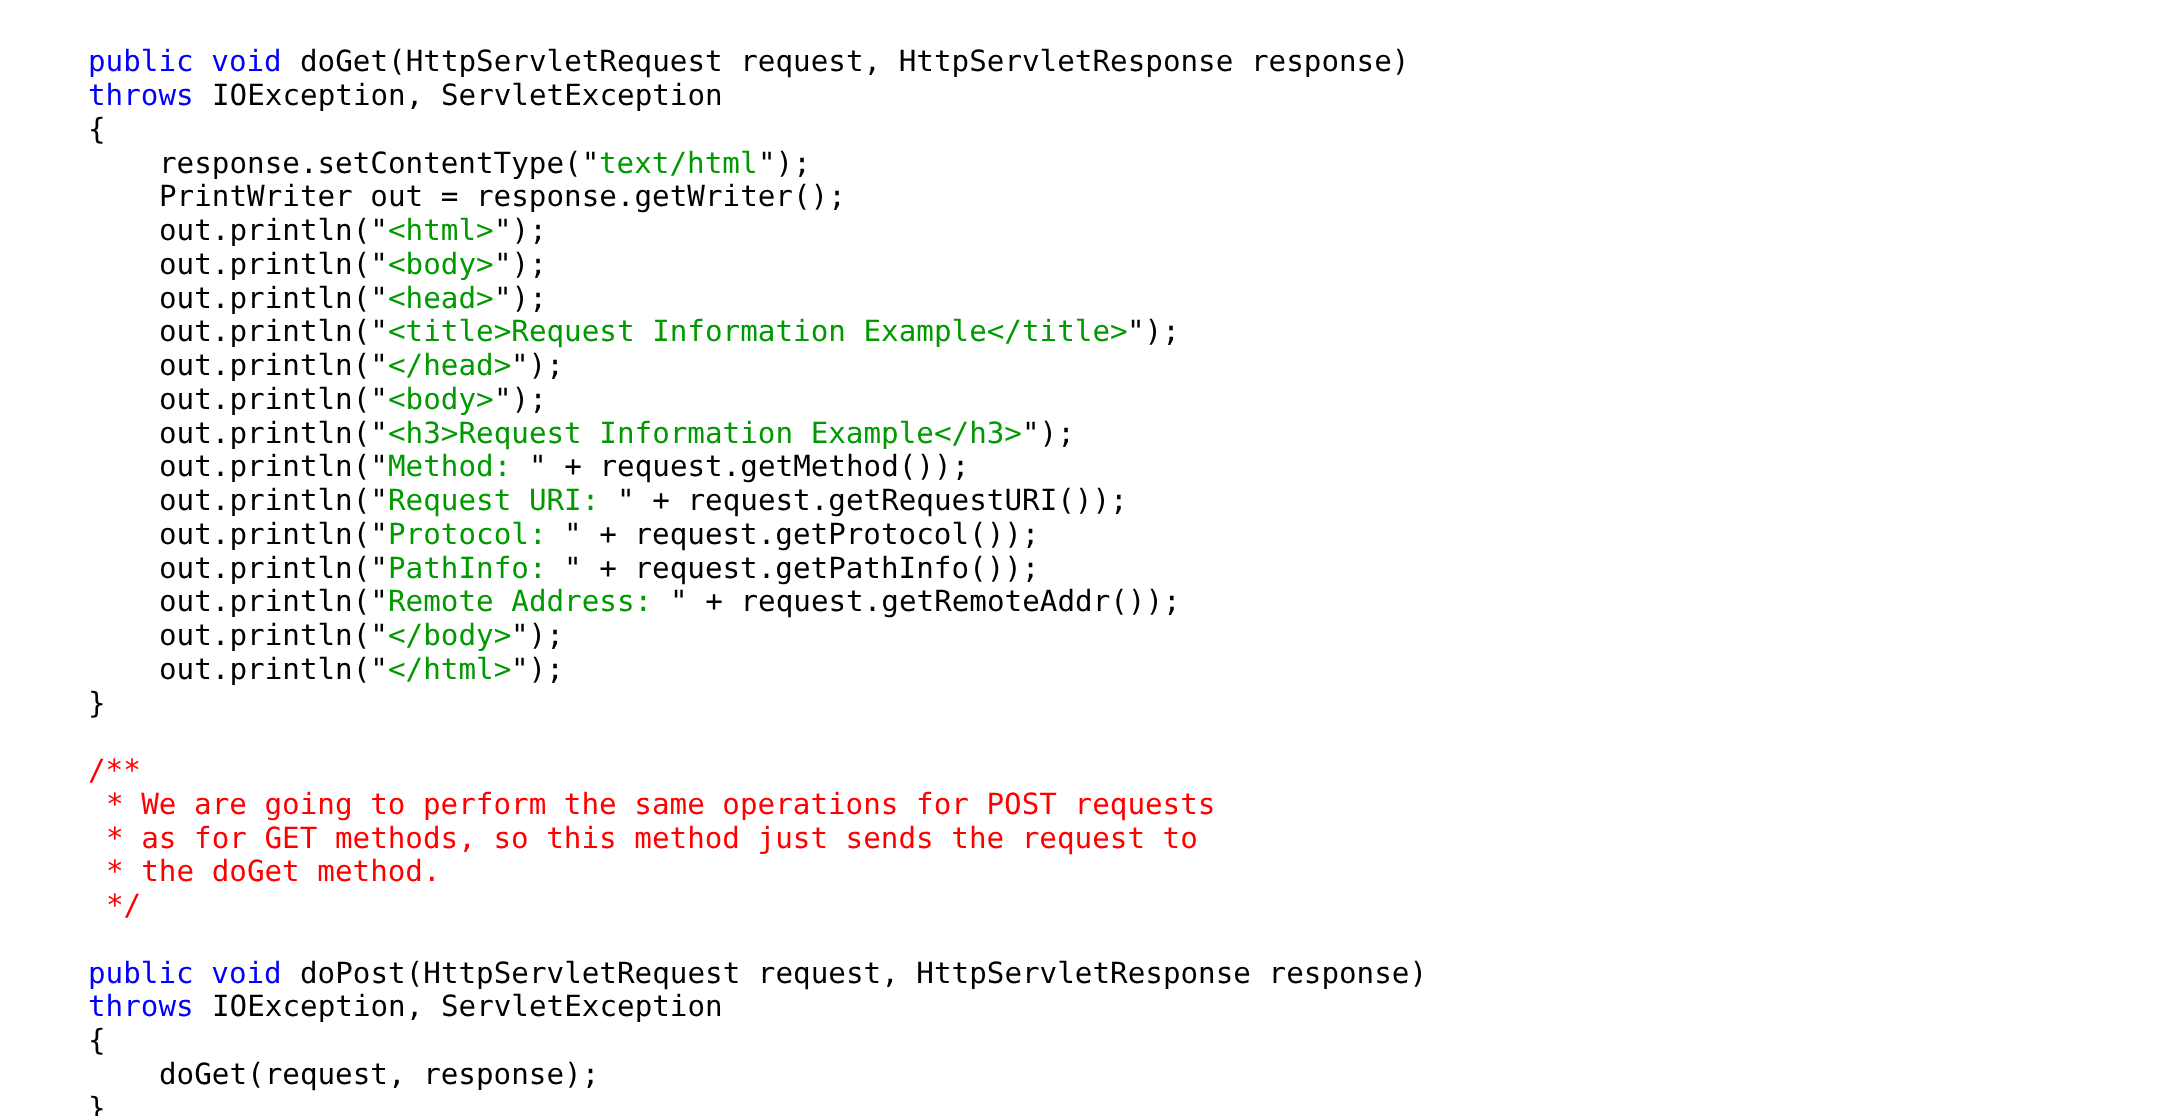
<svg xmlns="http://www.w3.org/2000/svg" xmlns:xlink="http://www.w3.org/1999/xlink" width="2172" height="1116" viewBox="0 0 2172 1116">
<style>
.cls-1{font:29.25px DejaVu Sans Mono;fill:#0000ff}
.cls-2{font:29.25px DejaVu Sans Mono;fill:#000000}
.cls-3{font:29.25px DejaVu Sans Mono;fill:#009900}
.cls-4{font:29.25px DejaVu Sans Mono;fill:#ff0000}
</style>
<rect width="100%" height="100%" fill="#ffffff"/>
<text class="cls-1" x="88" y="71">public void</text>
<text class="cls-2" x="300" y="71">doGet(HttpServletRequest request, HttpServletResponse response)</text>
<text class="cls-1" x="88" y="105">throws</text>
<text class="cls-2" x="212" y="105">IOException, ServletException</text>
<text class="cls-2" x="88" y="139">{</text>
<text class="cls-2" x="159" y="173">response.setContentType("</text>
<text class="cls-3" x="599" y="173">text/html</text>
<text class="cls-2" x="758" y="173">");</text>
<text class="cls-2"><tspan x="159" y="206">PrintWriter out = response.getWriter();</tspan><tspan x="159" y="240">out.println("</tspan></text>
<text class="cls-3" x="388" y="240">&lt;html&gt;</text>
<text class="cls-2" x="494" y="240">");</text>
<text class="cls-2" x="159" y="274">out.println("</text>
<text class="cls-3" x="388" y="274">&lt;body&gt;</text>
<text class="cls-2" x="494" y="274">");</text>
<text class="cls-2" x="159" y="308">out.println("</text>
<text class="cls-3" x="388" y="308">&lt;head&gt;</text>
<text class="cls-2" x="494" y="308">");</text>
<text class="cls-2" x="159" y="341">out.println("</text>
<text class="cls-3" x="388" y="341">&lt;title&gt;Request Information Example&lt;/title&gt;</text>
<text class="cls-2" x="1127" y="341">");</text>
<text class="cls-2" x="159" y="375">out.println("</text>
<text class="cls-3" x="388" y="375">&lt;/head&gt;</text>
<text class="cls-2" x="511" y="375">");</text>
<text class="cls-2" x="159" y="409">out.println("</text>
<text class="cls-3" x="388" y="409">&lt;body&gt;</text>
<text class="cls-2" x="494" y="409">");</text>
<text class="cls-2" x="159" y="443">out.println("</text>
<text class="cls-3" x="388" y="443">&lt;h3&gt;Request Information Example&lt;/h3&gt;</text>
<text class="cls-2" x="1022" y="443">");</text>
<text class="cls-2" x="159" y="476">out.println("</text>
<text class="cls-3" x="388" y="476">Method:</text>
<text class="cls-2" x="529" y="476">" + request.getMethod());</text>
<text class="cls-2" x="159" y="510">out.println("</text>
<text class="cls-3" x="388" y="510">Request URI:</text>
<text class="cls-2" x="617" y="510">" + request.getRequestURI());</text>
<text class="cls-2" x="159" y="544">out.println("</text>
<text class="cls-3" x="388" y="544">Protocol:</text>
<text class="cls-2" x="564" y="544">" + request.getProtocol());</text>
<text class="cls-2" x="159" y="578">out.println("</text>
<text class="cls-3" x="388" y="578">PathInfo:</text>
<text class="cls-2" x="564" y="578">" + request.getPathInfo());</text>
<text class="cls-2" x="159" y="611">out.println("</text>
<text class="cls-3" x="388" y="611">Remote Address:</text>
<text class="cls-2" x="670" y="611">" + request.getRemoteAddr());</text>
<text class="cls-2" x="159" y="645">out.println("</text>
<text class="cls-3" x="388" y="645">&lt;/body&gt;</text>
<text class="cls-2" x="511" y="645">");</text>
<text class="cls-2" x="159" y="679">out.println("</text>
<text class="cls-3" x="388" y="679">&lt;/html&gt;</text>
<text class="cls-2" x="511" y="679">");</text>
<text class="cls-2" x="88" y="713">}</text>
<text class="cls-4" x="88" y="780">/**</text>
<text class="cls-4"><tspan x="106" y="814">* We are going to perform the same operations for POST requests</tspan><tspan x="106" y="848">* as for GET methods, so this method just sends the request to</tspan><tspan x="106" y="881">* the doGet method.</tspan><tspan x="106" y="915">*/</tspan></text>
<text class="cls-1" x="88" y="983">public void</text>
<text class="cls-2" x="300" y="983">doPost(HttpServletRequest request, HttpServletResponse response)</text>
<text class="cls-1" x="88" y="1016">throws</text>
<text class="cls-2" x="212" y="1016">IOException, ServletException</text>
<text class="cls-2" x="88" y="1050">{</text>
<text class="cls-2" x="159" y="1084">doGet(request, response);</text>
<text class="cls-2" x="88" y="1118">}</text>
</svg>
